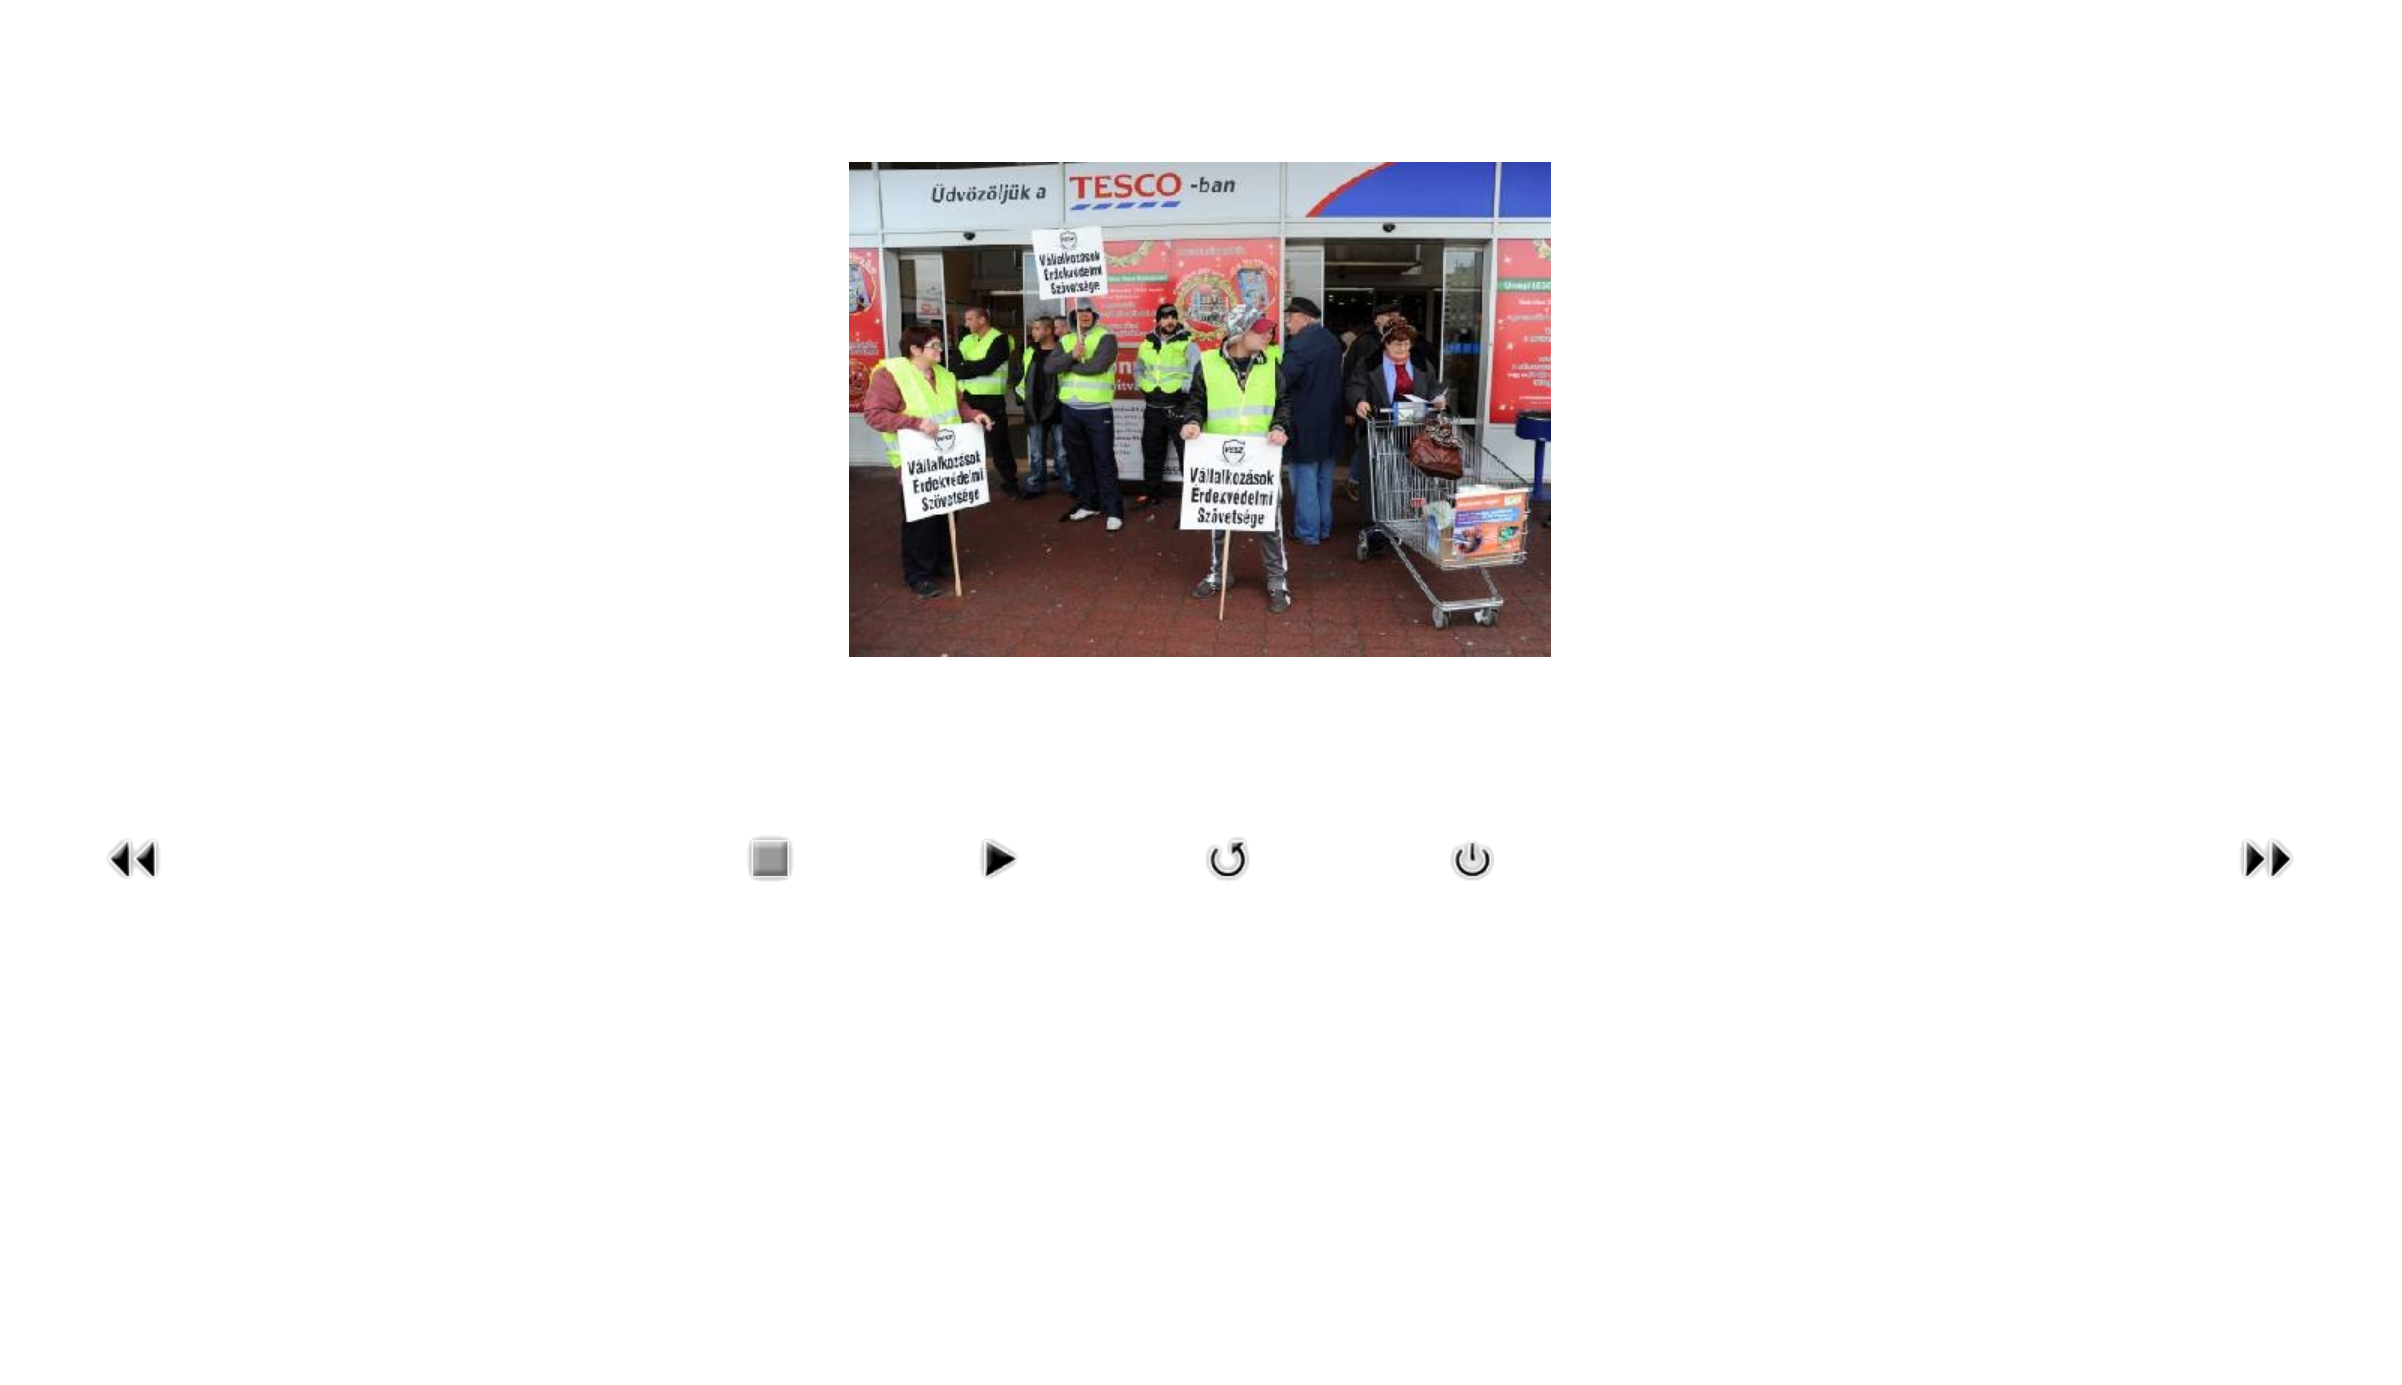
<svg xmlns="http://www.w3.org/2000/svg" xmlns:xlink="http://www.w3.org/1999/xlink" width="2402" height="1385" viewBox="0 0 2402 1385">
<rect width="100%" height="100%" fill="#ffffff"/>
<image xlink:href="image0.png" x="849" y="162" width="702" height="495"/>
<image xlink:href="image1.png" x="106" y="838" width="55" height="42"/>
<image xlink:href="image2.png" x="747" y="835" width="47" height="47"/>
<image xlink:href="image3.png" x="979" y="838" width="40" height="42"/>
<image xlink:href="image4.png" x="1206" y="837" width="44" height="45"/>
<image xlink:href="image5.png" x="1450" y="840" width="45" height="41"/>
<image xlink:href="image6.png" x="2239" y="838" width="55" height="42"/>
</svg>
